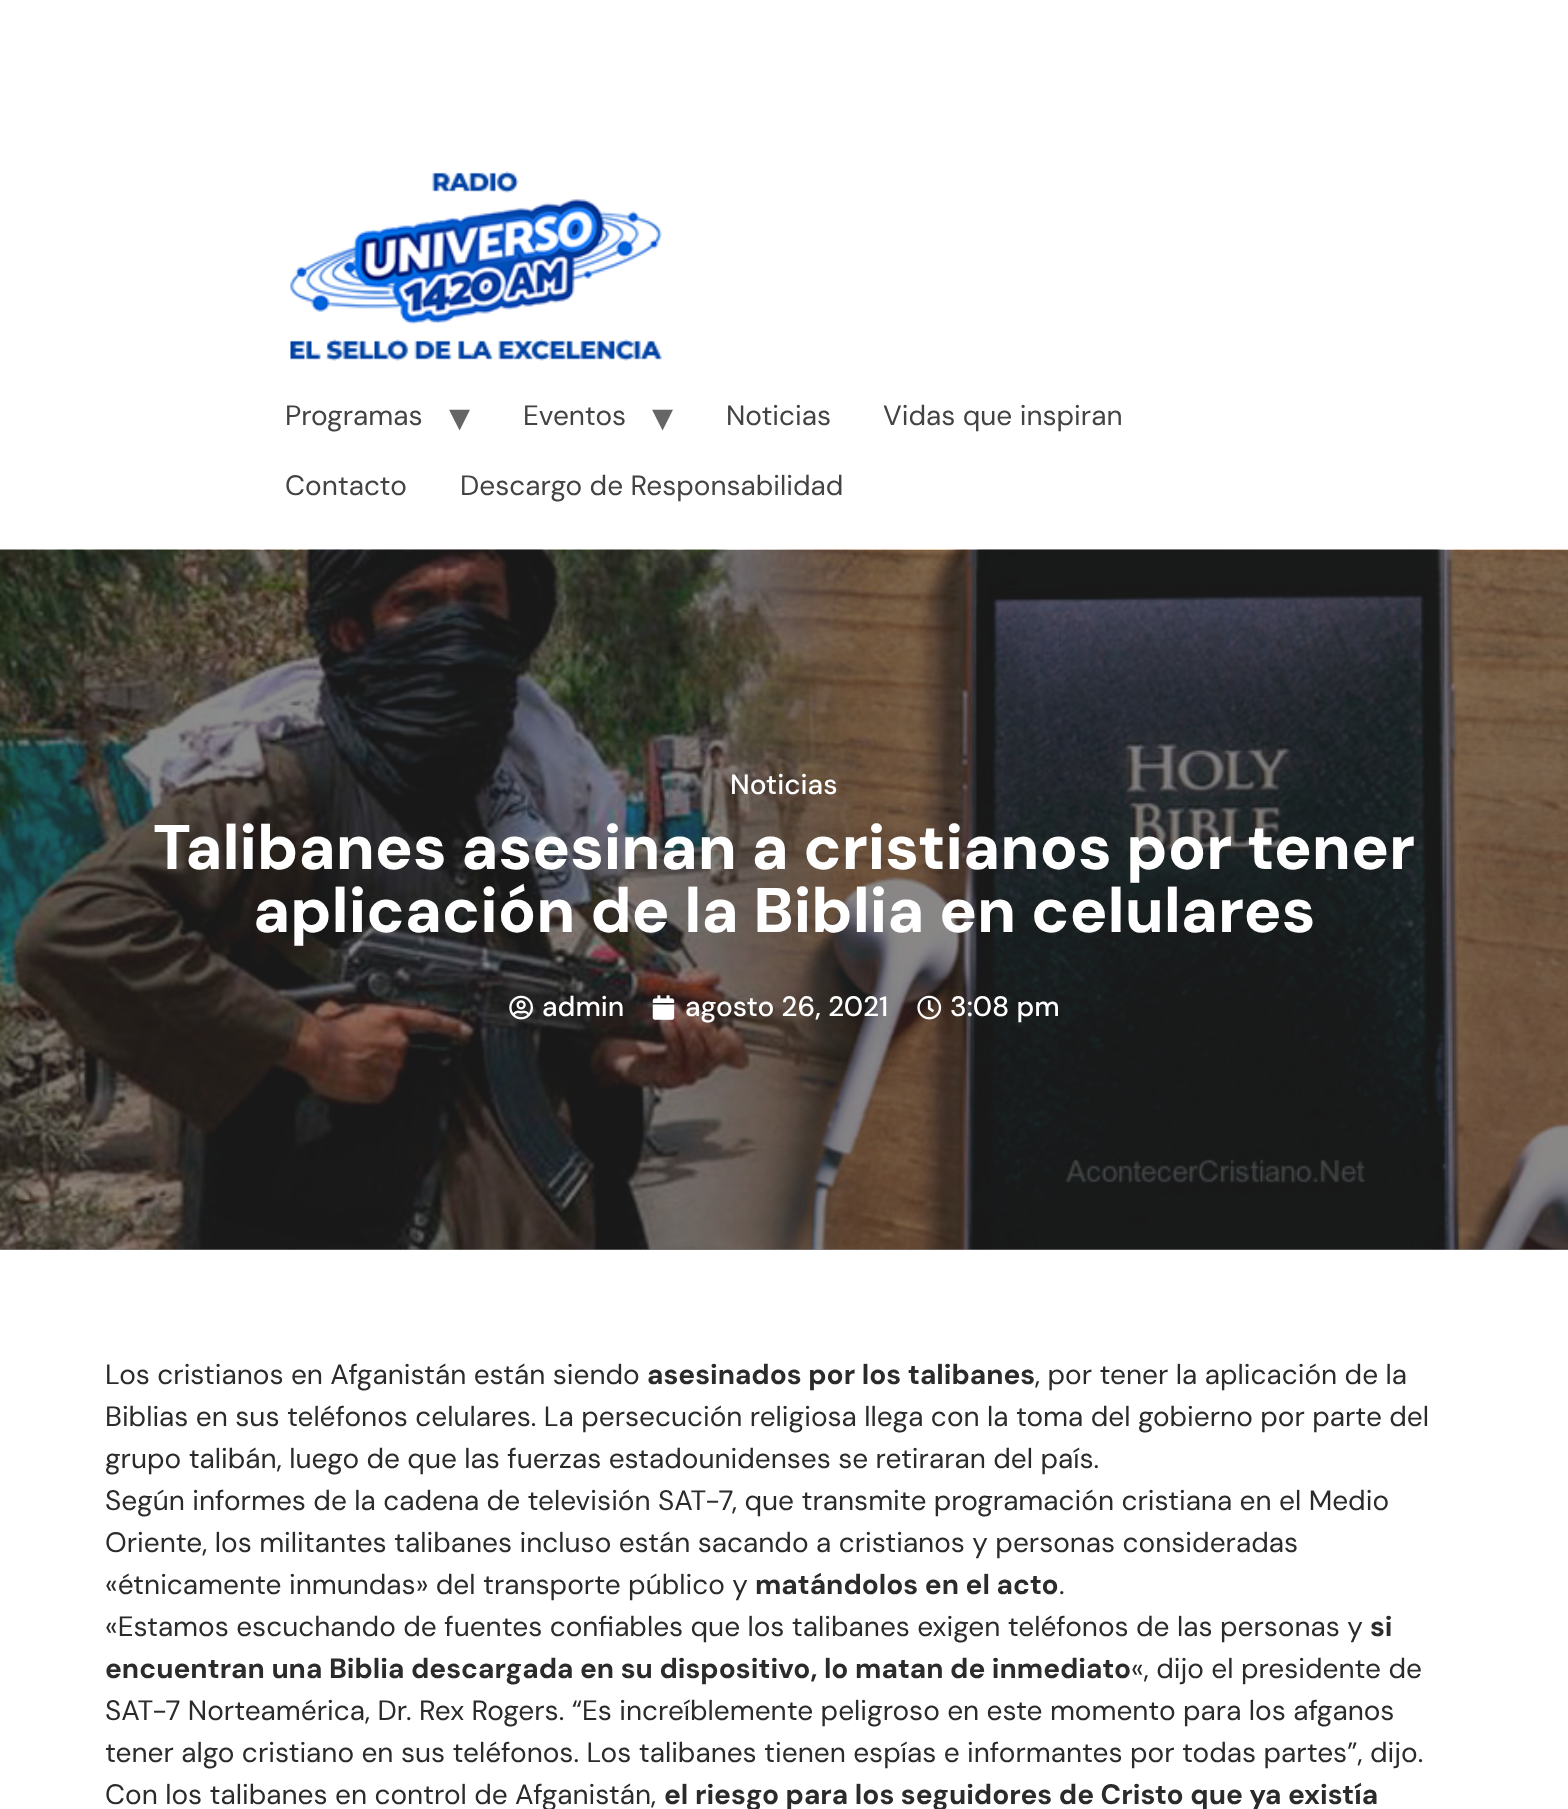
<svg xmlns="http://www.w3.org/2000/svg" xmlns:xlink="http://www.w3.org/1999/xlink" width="1568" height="1809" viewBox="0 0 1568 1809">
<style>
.cls-1{font:28px DM Sans;fill:#434343}
.cls-2{font:42px DejaVu Sans;fill:#666666}
.cls-3{font:500 28px DM Sans;fill:#ffffff}
.cls-4{font:800 63px DM Sans;fill:#ffffff}
.cls-5{font:28px DM Sans;fill:#2b2b2b}
.cls-6{font:bold 28px DM Sans;fill:#2b2b2b}
</style>
<rect width="100%" height="100%" fill="#ffffff"/>
<rect fill="#8a8a8a" x="0" y="1249" width="1568" height="1"/>
<image xlink:href="image0.png" x="290" y="171" width="372" height="190"/>
<image xlink:href="image1.png" x="0" y="549" width="1568" height="701"/>
<image xlink:href="image2.png" x="509" y="995" width="24" height="25"/>
<image xlink:href="image3.png" x="652" y="995" width="23" height="25"/>
<image xlink:href="image4.png" x="917" y="995" width="25" height="25"/>
<text class="cls-1" x="285" y="425">Programas</text>
<text class="cls-2" x="449" y="431">▾</text>
<text class="cls-1" x="523" y="425">Eventos</text>
<text class="cls-2" x="652" y="431">▾</text>
<text class="cls-1" x="726" y="425">Noticias</text>
<text class="cls-1" x="883" y="425">Vidas que inspiran</text>
<text class="cls-1" x="285" y="495">Contacto</text>
<text class="cls-1" x="460" y="495">Descargo de Responsabilidad</text>
<text class="cls-3" x="730" y="794">Noticias</text>
<text class="cls-4" x="153" y="869">Talibanes asesinan a cristianos por tener</text>
<text class="cls-4" x="253" y="932">aplicación de la Biblia en celulares</text>
<text class="cls-3" x="542" y="1016">admin</text>
<text class="cls-3" x="685" y="1016">agosto 26, 2021</text>
<text class="cls-3" x="950" y="1016">3:08 pm</text>
<text class="cls-5" x="105" y="1384">Los cristianos en Afganistán están siendo</text>
<text class="cls-6" x="647" y="1384">asesinados por los talibanes</text>
<text class="cls-5" x="1035" y="1384">, por tener la aplicación de la</text>
<text class="cls-5"><tspan x="105" y="1426">Biblias en sus teléfonos celulares. La persecución religiosa llega con la toma del gobierno por parte del</tspan><tspan x="105" y="1468">grupo talibán, luego de que las fuerzas estadounidenses se retiraran del país.</tspan><tspan x="105" y="1510">Según informes de la cadena de televisión SAT-7, que transmite programación cristiana en el Medio</tspan><tspan x="105" y="1552">Oriente, los militantes talibanes incluso están sacando a cristianos y personas consideradas</tspan><tspan x="105" y="1594">«étnicamente inmundas» del transporte público y</tspan></text>
<text class="cls-6" x="755" y="1594">matándolos en el acto</text>
<text class="cls-5" x="1059" y="1594">.</text>
<text class="cls-5" x="105" y="1636">«Estamos escuchando de fuentes confiables que los talibanes exigen teléfonos de las personas y</text>
<text class="cls-6" x="1370" y="1636">si</text>
<text class="cls-6" x="105" y="1678">encuentran una Biblia descargada en su dispositivo, lo matan de inmediato</text>
<text class="cls-5" x="1131" y="1678">«, dijo el presidente de</text>
<text class="cls-5"><tspan x="105" y="1720">SAT-7 Norteamérica, Dr. Rex Rogers. “Es increíblemente peligroso en este momento para los afganos</tspan><tspan x="105" y="1762">tener algo cristiano en sus teléfonos. Los talibanes tienen espías e informantes por todas partes”, dijo.</tspan><tspan x="105" y="1804">Con los talibanes en control de Afganistán,</tspan></text>
<text class="cls-6" x="664" y="1804">el riesgo para los seguidores de Cristo que ya existía</text>
</svg>
